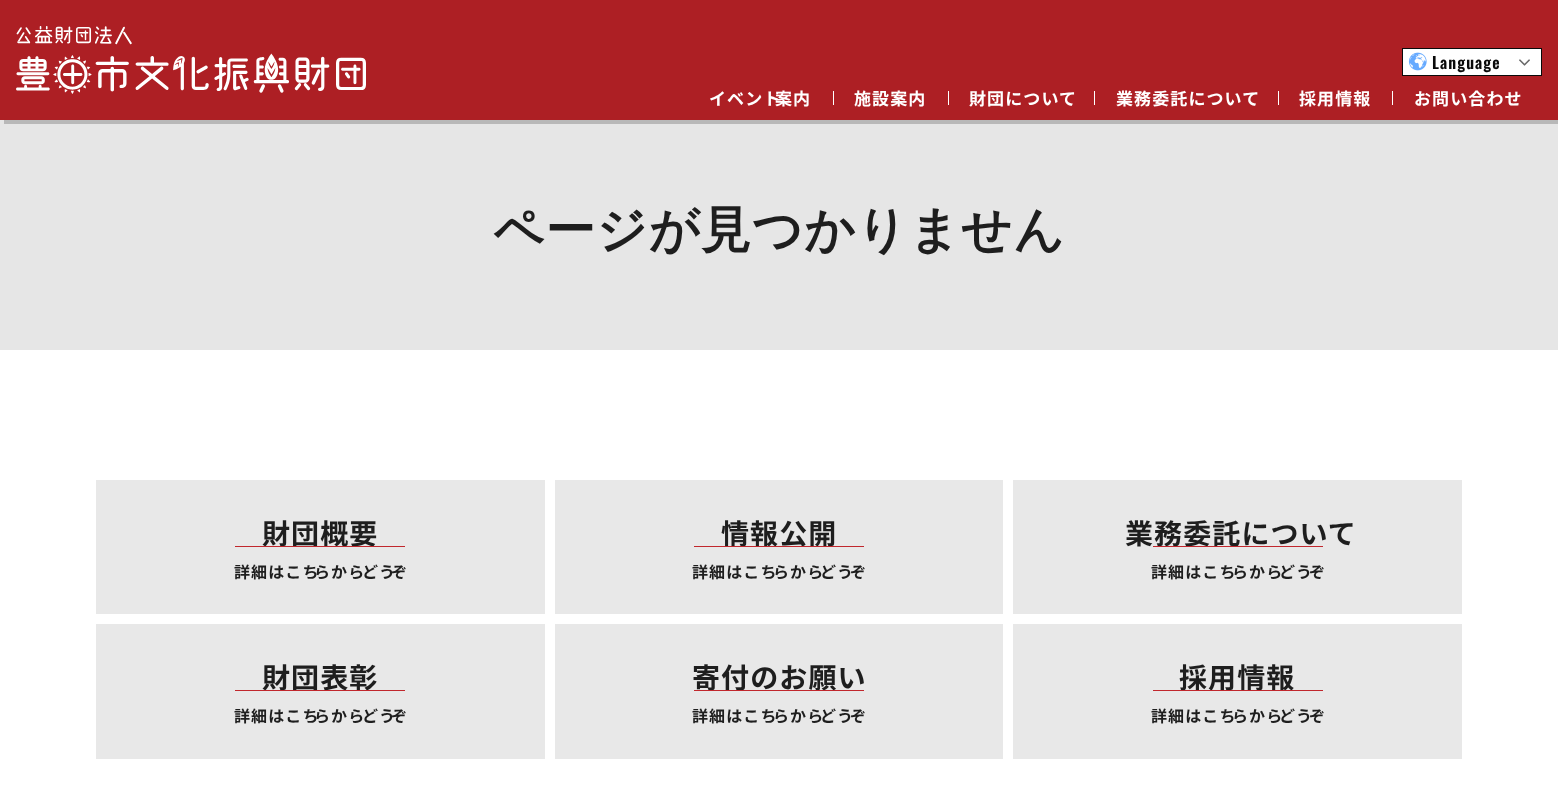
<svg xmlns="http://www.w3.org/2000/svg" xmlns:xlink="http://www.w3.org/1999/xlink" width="1558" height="796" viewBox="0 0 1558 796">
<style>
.cls-1{font:600 16px Oswald;letter-spacing:1.1px;fill:#0a0a0a}
.cls-2{font:bold 17px Noto Sans JP;letter-spacing:1.1px;fill:#ffffff}
.cls-3{font:bold 50px WenQuanYi Zen Hei;letter-spacing:1.1px;fill:#1e1e1e}
.cls-4{font:bold 28px Noto Sans JP;letter-spacing:1.1px;fill:#1e1e1e}
.cls-5{font:bold 16px Noto Sans JP;letter-spacing:1.1px;fill:#1e1e1e}
</style>
<rect width="100%" height="100%" fill="#ffffff"/>
<rect fill="#e6e6e6" x="0" y="120" width="1558" height="230"/>
<rect fill="#000000" fill-opacity="0.2" filter="blur(0.5px)" x="4" y="4" width="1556" height="120"/>
<rect fill="#ad1f24" x="0" y="0" width="1558" height="120"/>
<image xlink:href="image0.png" x="16" y="26" width="350" height="68"/>
<rect fill="#ffffff" stroke="#0a0a0a" x="1402.5" y="48.5" width="139" height="27"/>
<image xlink:href="image1.png" x="1408" y="52" width="19" height="19"/>
<image xlink:href="image2.png" x="1519" y="59" width="11" height="7"/>
<rect fill="#ffffff" x="833" y="91" width="1" height="14"/>
<rect fill="#ffffff" x="948" y="91" width="1" height="14"/>
<rect fill="#ffffff" x="1094" y="91" width="1" height="14"/>
<rect fill="#ffffff" x="1278" y="91" width="1" height="14"/>
<rect fill="#ffffff" x="1392" y="91" width="1" height="14"/>
<rect fill="#e8e8e8" x="96" y="480" width="449" height="134"/>
<rect fill="#e8e8e8" x="555" y="480" width="448" height="134"/>
<rect fill="#e8e8e8" x="1013" y="480" width="449" height="134"/>
<rect fill="#e8e8e8" x="96" y="624" width="449" height="135"/>
<rect fill="#e8e8e8" x="555" y="624" width="448" height="135"/>
<rect fill="#e8e8e8" x="1013" y="624" width="449" height="135"/>
<text class="cls-1" x="1432" y="69">Language</text>
<text class="cls-2" x="709" y="105">イベント</text>
<text class="cls-2" x="775" y="105">案内</text>
<text class="cls-2" x="854" y="105">施設案内</text>
<text class="cls-2" x="969" y="105">財団について</text>
<text class="cls-2" x="1116" y="105">業務委託について</text>
<text class="cls-2" x="1299" y="105">採用情報</text>
<text class="cls-2" x="1414" y="105">お問い合わせ</text>
<text class="cls-3" x="493" y="247">ページが見つかりません</text>
<text class="cls-4" x="262" y="544">財団概要</text>
<rect fill="#c1272d" x="235" y="546" width="170" height="1"/>
<text class="cls-5" x="234" y="578">詳細はこち</text>
<text class="cls-5" x="314" y="578">らから</text>
<text class="cls-5" x="362" y="578">どう</text>
<text class="cls-5" x="391" y="578">ぞ</text>
<text class="cls-4" x="721" y="544">情報公開</text>
<rect fill="#c1272d" x="694" y="546" width="170" height="1"/>
<text class="cls-5" x="692" y="578">詳細はこち</text>
<text class="cls-5" x="773" y="578">らから</text>
<text class="cls-5" x="820" y="578">どう</text>
<text class="cls-5" x="850" y="578">ぞ</text>
<text class="cls-4" x="1125" y="544">業務委託について</text>
<rect fill="#c1272d" x="1153" y="546" width="170" height="1"/>
<text class="cls-5" x="1151" y="578">詳細はこち</text>
<text class="cls-5" x="1232" y="578">らから</text>
<text class="cls-5" x="1279" y="578">どう</text>
<text class="cls-5" x="1309" y="578">ぞ</text>
<text class="cls-4" x="262" y="688">財団表彰</text>
<rect fill="#c1272d" x="235" y="690" width="170" height="1"/>
<text class="cls-5" x="234" y="722">詳細はこち</text>
<text class="cls-5" x="314" y="722">らから</text>
<text class="cls-5" x="362" y="722">どう</text>
<text class="cls-5" x="391" y="722">ぞ</text>
<text class="cls-4" x="692" y="688">寄付のお願い</text>
<rect fill="#c1272d" x="694" y="690" width="170" height="1"/>
<text class="cls-5" x="692" y="722">詳細はこち</text>
<text class="cls-5" x="773" y="722">らから</text>
<text class="cls-5" x="820" y="722">どう</text>
<text class="cls-5" x="850" y="722">ぞ</text>
<text class="cls-4" x="1179" y="688">採用情報</text>
<rect fill="#c1272d" x="1153" y="690" width="170" height="1"/>
<text class="cls-5" x="1151" y="722">詳細はこち</text>
<text class="cls-5" x="1232" y="722">らから</text>
<text class="cls-5" x="1279" y="722">どう</text>
<text class="cls-5" x="1309" y="722">ぞ</text>
</svg>
